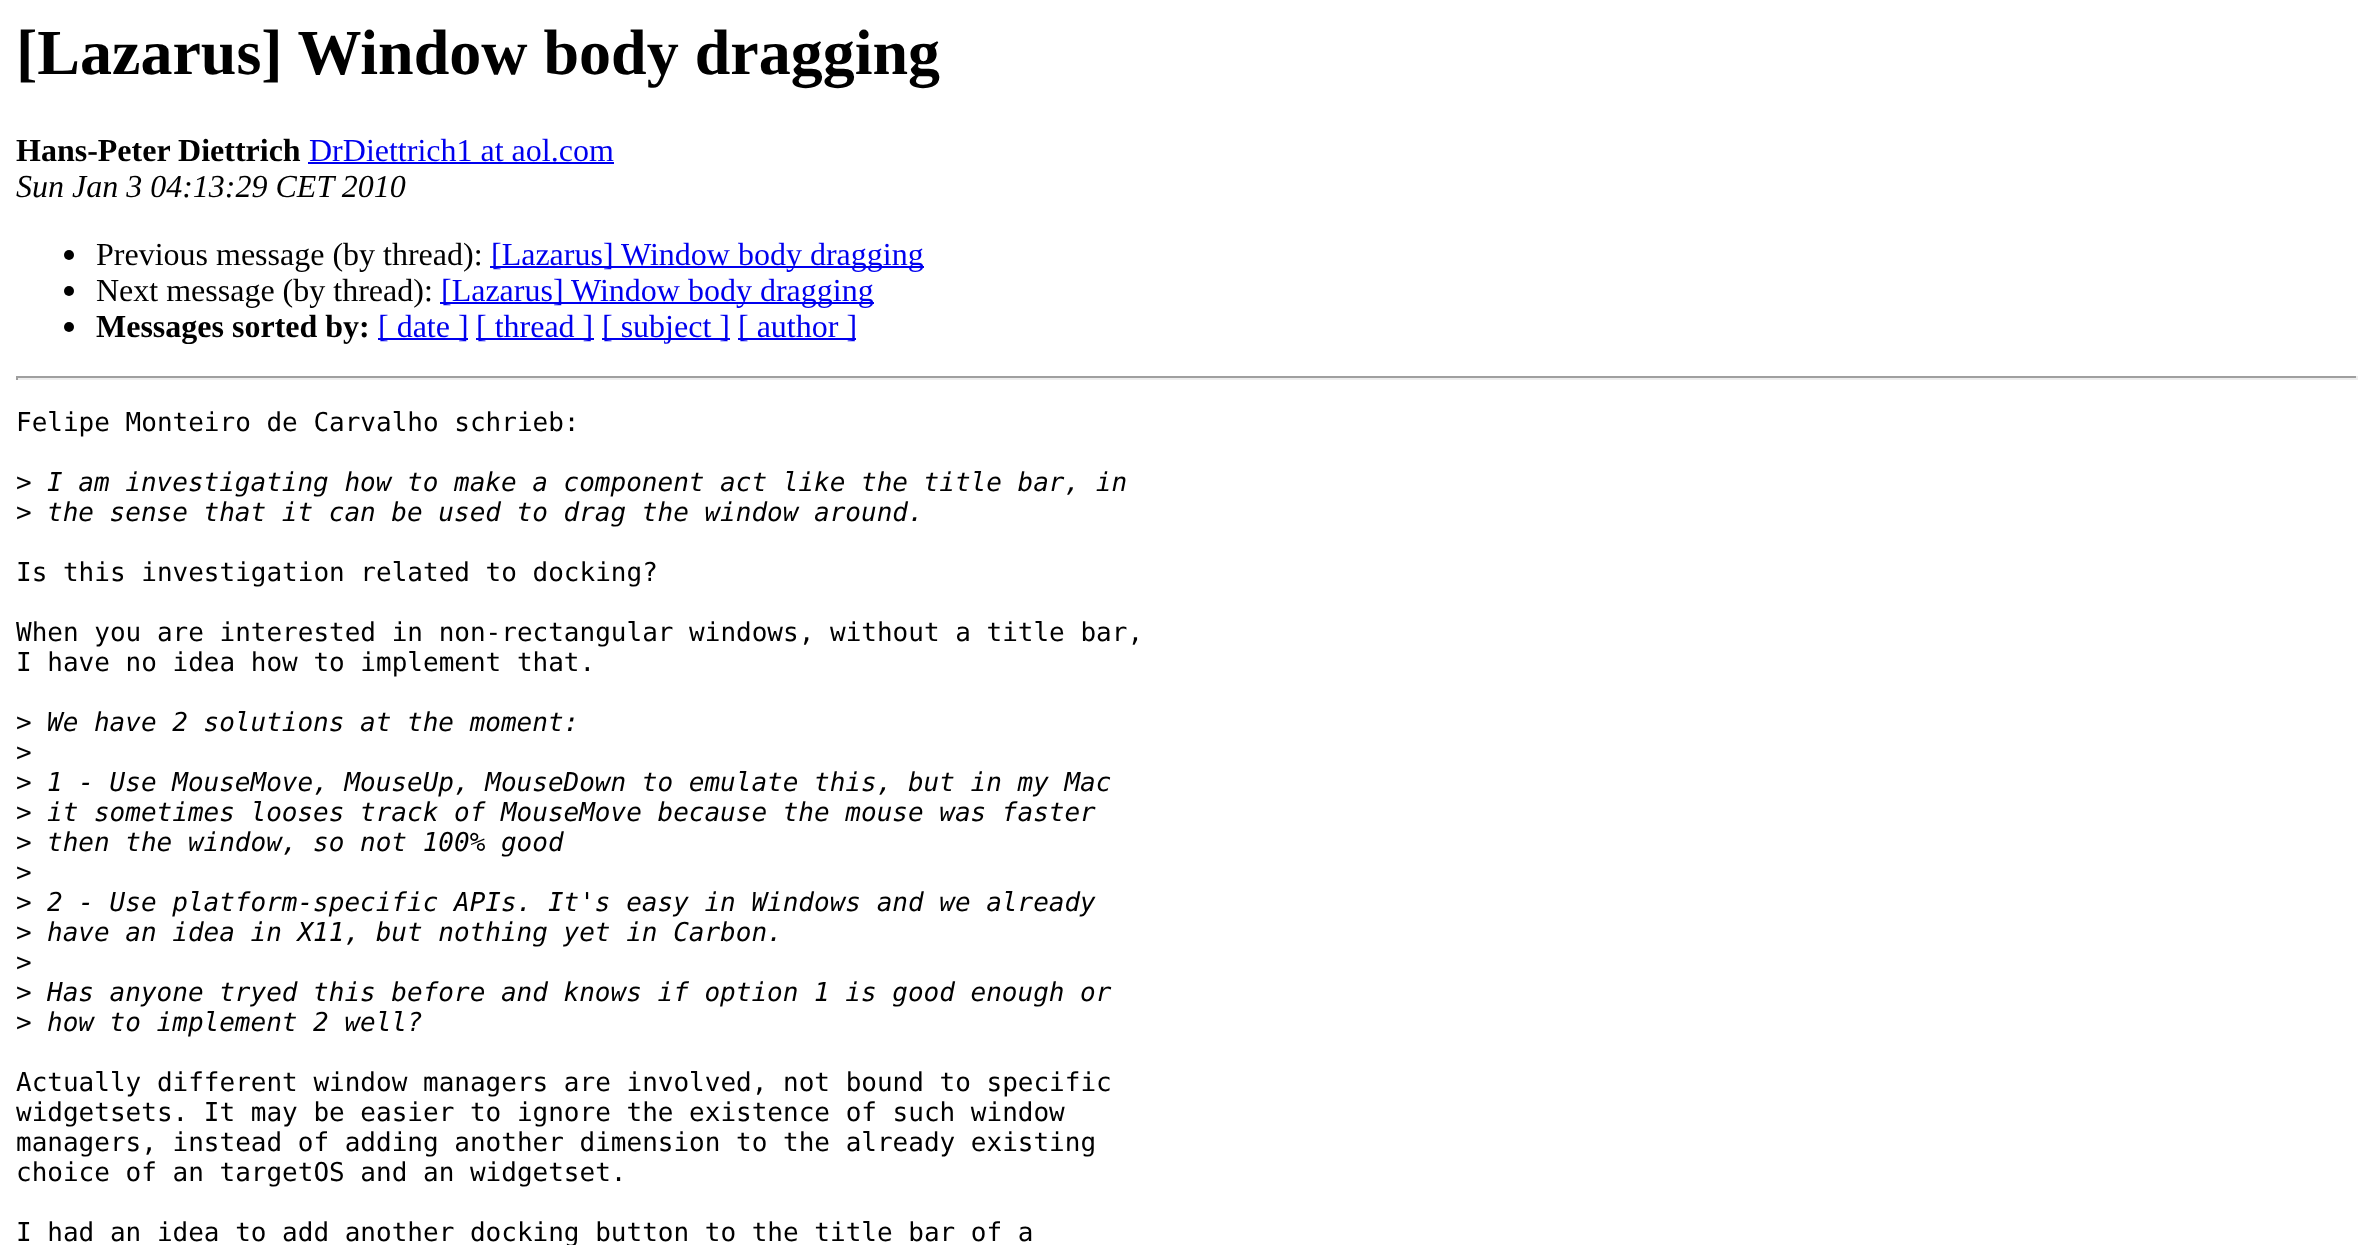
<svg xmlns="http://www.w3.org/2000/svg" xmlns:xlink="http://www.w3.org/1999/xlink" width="2373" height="1245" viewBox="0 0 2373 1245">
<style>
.cls-1{font:bold 64px Liberation Serif;fill:#000000}
.cls-2{font:bold 32px Liberation Serif;fill:#000000}
.cls-3{font:32px Liberation Serif;fill:#0000ee}
.cls-4{font:italic 32px Liberation Serif;fill:#000000}
.cls-5{font:32px Liberation Serif;fill:#000000}
.cls-6{font:26px DejaVu Sans Mono;fill:#000000}
.cls-7{font:italic 26px DejaVu Sans Mono;fill:#000000}
</style>
<rect width="100%" height="100%" fill="#ffffff"/>
<rect fill="#0000ee" x="308" y="162" width="306" height="2"/>
<circle fill="#000000" cx="69" cy="255" r="5"/>
<rect fill="#0000ee" x="490" y="266" width="434" height="2"/>
<circle fill="#000000" cx="69" cy="291" r="5"/>
<rect fill="#0000ee" x="440" y="302" width="434" height="2"/>
<circle fill="#000000" cx="69" cy="327" r="5"/>
<rect fill="#0000ee" x="378" y="338" width="90" height="2"/>
<rect fill="#0000ee" x="476" y="338" width="118" height="2"/>
<rect fill="#0000ee" x="602" y="338" width="128" height="2"/>
<rect fill="#0000ee" x="738" y="338" width="118" height="2"/>
<rect fill="#9f9f9f" x="16" y="376" width="2342" height="2"/>
<rect fill="#eeeeee" x="2356" y="376" width="2" height="4"/>
<rect fill="#eeeeee" x="16" y="378" width="2342" height="2"/>
<rect fill="#9f9f9f" x="16" y="376" width="2" height="4"/>
<text class="cls-1" x="16" y="74">[Lazarus] Window body dragging</text>
<text class="cls-2" x="16" y="161">Hans-Peter Diettrich</text>
<text class="cls-3" x="309" y="161">DrDiettrich1 at aol.com</text>
<text class="cls-4" x="16" y="197">Sun Jan 3 04:13:29 CET 2010</text>
<text class="cls-5" x="96" y="265">Previous message (by thread):</text>
<text class="cls-3" x="491" y="265">[Lazarus] Window body dragging</text>
<text class="cls-5" x="96" y="301">Next message (by thread):</text>
<text class="cls-3" x="441" y="301">[Lazarus] Window body dragging</text>
<text class="cls-2" x="96" y="337">Messages sorted by:</text>
<text class="cls-3" x="378" y="337">[ date ]</text>
<text class="cls-3" x="476" y="337">[ thread ]</text>
<text class="cls-3" x="602" y="337">[ subject ]</text>
<text class="cls-3" x="738" y="337">[ author ]</text>
<text class="cls-6" x="16" y="431">Felipe Monteiro de Carvalho schrieb:</text>
<text class="cls-6" x="16" y="491">&gt;</text>
<text class="cls-7" x="47" y="491">I am investigating how to make a component act like the title bar, in</text>
<text class="cls-6" x="16" y="521">&gt;</text>
<text class="cls-7" x="47" y="521">the sense that it can be used to drag the window around.</text>
<text class="cls-6" x="16" y="581">Is this investigation related to docking?</text>
<text class="cls-6"><tspan x="16" y="641">When you are interested in non-rectangular windows, without a title bar,</tspan><tspan x="16" y="671">I have no idea how to implement that.</tspan></text>
<text class="cls-6" x="16" y="731">&gt;</text>
<text class="cls-7" x="47" y="731">We have 2 solutions at the moment:</text>
<text class="cls-6"><tspan x="16" y="761">&gt;</tspan><tspan x="16" y="791">&gt;</tspan></text>
<text class="cls-7" x="47" y="791">1 - Use MouseMove, MouseUp, MouseDown to emulate this, but in my Mac</text>
<text class="cls-6" x="16" y="821">&gt;</text>
<text class="cls-7" x="47" y="821">it sometimes looses track of MouseMove because the mouse was faster</text>
<text class="cls-6" x="16" y="851">&gt;</text>
<text class="cls-7" x="47" y="851">then the window, so not 100% good</text>
<text class="cls-6"><tspan x="16" y="881">&gt;</tspan><tspan x="16" y="911">&gt;</tspan></text>
<text class="cls-7" x="47" y="911">2 - Use platform-specific APIs. It's easy in Windows and we already</text>
<text class="cls-6" x="16" y="941">&gt;</text>
<text class="cls-7" x="47" y="941">have an idea in X11, but nothing yet in Carbon.</text>
<text class="cls-6"><tspan x="16" y="971">&gt;</tspan><tspan x="16" y="1001">&gt;</tspan></text>
<text class="cls-7" x="47" y="1001">Has anyone tryed this before and knows if option 1 is good enough or</text>
<text class="cls-6" x="16" y="1031">&gt;</text>
<text class="cls-7" x="47" y="1031">how to implement 2 well?</text>
<text class="cls-6"><tspan x="16" y="1091">Actually different window managers are involved, not bound to specific</tspan><tspan x="16" y="1121">widgetsets. It may be easier to ignore the existence of such window</tspan><tspan x="16" y="1151">managers, instead of adding another dimension to the already existing</tspan><tspan x="16" y="1181">choice of an targetOS and an widgetset.</tspan></text>
<text class="cls-6" x="16" y="1241">I had an idea to add another docking button to the title bar of a</text>
</svg>
